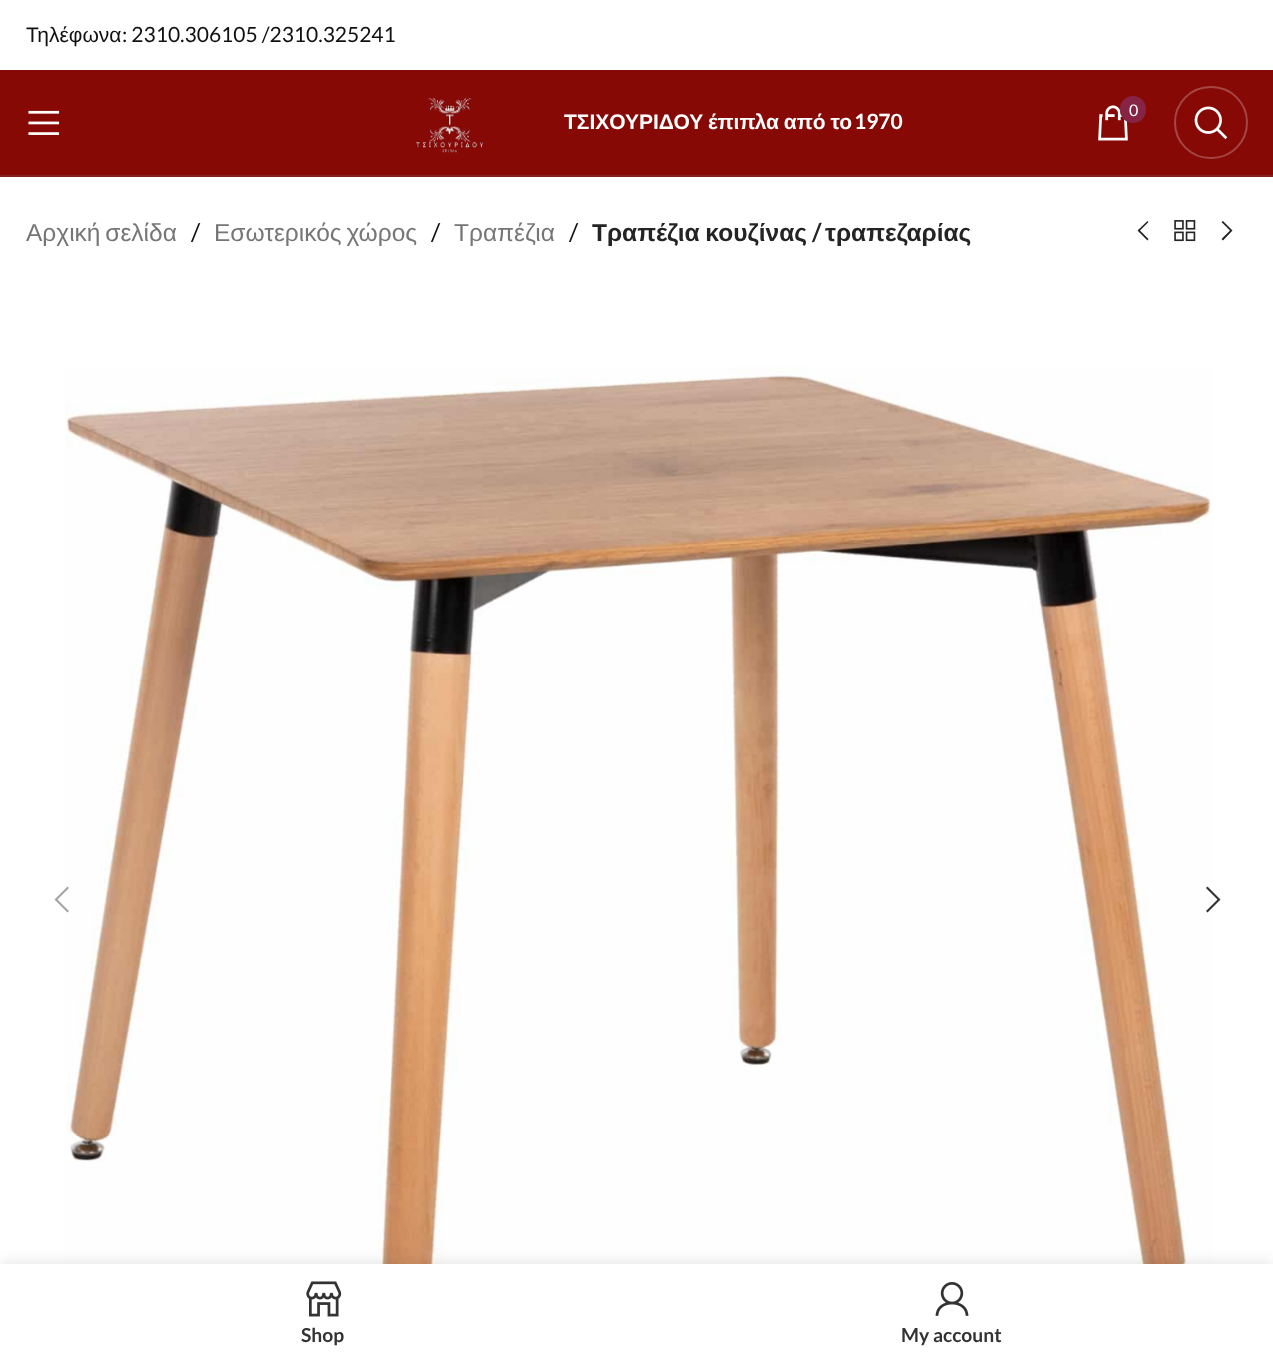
<svg xmlns="http://www.w3.org/2000/svg" xmlns:xlink="http://www.w3.org/1999/xlink" width="1273" height="1359" viewBox="0 0 1273 1359">
<style>
.cls-1{font:21px Liberation Sans;fill:#111111}
.cls-2{font:21px Lato;fill:#111111}
.cls-3{font:bold 21px Liberation Sans;fill:#ffffff}
.cls-4{font:bold 21px Lato;fill:#ffffff}
.cls-5{font:16px Lato;fill:#ffffff}
.cls-6{font:24.5px Liberation Sans;fill:#767676}
.cls-7{font:24.5px Lato;fill:#111111}
.cls-8{font:bold 24.5px Liberation Sans;fill:#242424}
.cls-9{font:bold 24.5px Lato;fill:#242424}
.cls-10{font:bold 19.25px Lato;fill:#333333}
</style>
<rect width="100%" height="100%" fill="#ffffff"/>
<rect fill="#860906" x="0" y="70" width="1273" height="105"/>
<rect fill="#85211f" x="0" y="175" width="1273" height="2"/>
<image xlink:href="image0.png" x="28" y="110" width="32" height="25"/>
<image xlink:href="image1.png" x="416" y="97" width="68" height="56"/>
<image xlink:href="image2.png" x="1098" y="105" width="30" height="36"/>
<rect fill="#872445" x="1120" y="96" width="26" height="27" rx="13"/>
<rect fill="none" stroke="#a44744" stroke-width="2" x="1175" y="87" width="72" height="71" rx="35.5"/>
<image xlink:href="image3.png" x="1194" y="106" width="34" height="34"/>
<path fill="#242424" d="M1148.5 222L1147.5 221L1137.5 230.5L1147.5 240.5L1148.5 239L1140 230.5Z"/>
<image xlink:href="image4.png" x="1174" y="220" width="22" height="22"/>
<path fill="#242424" d="M1221.5 222L1230 230.5L1221.5 239L1223 240.5L1232.5 230.5L1223 221Z"/>
<image xlink:href="image5.png" x="65" y="367" width="1148" height="897"/>
<path fill="#a5a5a5" d="M69 888L67.5 886.5L54.5 899.5L67.5 912.5L69 911L57.5 899.5Z"/>
<path fill="#333333" d="M1206 888L1217.5 899.5L1206 911L1207.5 912.5L1220.5 899.5L1207.5 886.5Z"/>
<rect fill="#000000" fill-opacity="0.12" filter="blur(8px)" x="0" y="1264" width="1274" height="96"/>
<rect fill="#ffffff" x="0" y="1264" width="1273" height="95"/>
<image xlink:href="image6.png" x="306" y="1281" width="36" height="36"/>
<image xlink:href="image7.png" x="935" y="1282" width="34" height="34"/>
<text class="cls-1" x="26" y="42">Τηλέφωνα</text>
<text class="cls-2" x="122" y="42">: 2310.306105 /2310.325241</text>
<text class="cls-3" x="564" y="129" word-spacing="-1">ΤΣΙΧΟΥΡΙΔΟΥ έπιπλα από το</text>
<text class="cls-4" x="854" y="129">1970</text>
<text class="cls-5" x="1129" y="116">0</text>
<text class="cls-6" x="26" y="241" word-spacing="-2">Αρχική σελίδα</text>
<text class="cls-7" x="191" y="241">/</text>
<text class="cls-6" x="214" y="241" word-spacing="-2">Εσωτερικός χώρος</text>
<text class="cls-7" x="431" y="241">/</text>
<text class="cls-6" x="454" y="241">Τραπέζια</text>
<text class="cls-7" x="569" y="241">/</text>
<text class="cls-8" x="592" y="241" word-spacing="-1">Τραπέζια κουζίνας</text>
<text class="cls-9" x="812" y="241">/</text>
<text class="cls-8" x="825" y="241">τραπεζαρίας</text>
<text class="cls-10" x="301" y="1342">Shop</text>
<text class="cls-10" x="901" y="1342">My account</text>
</svg>
